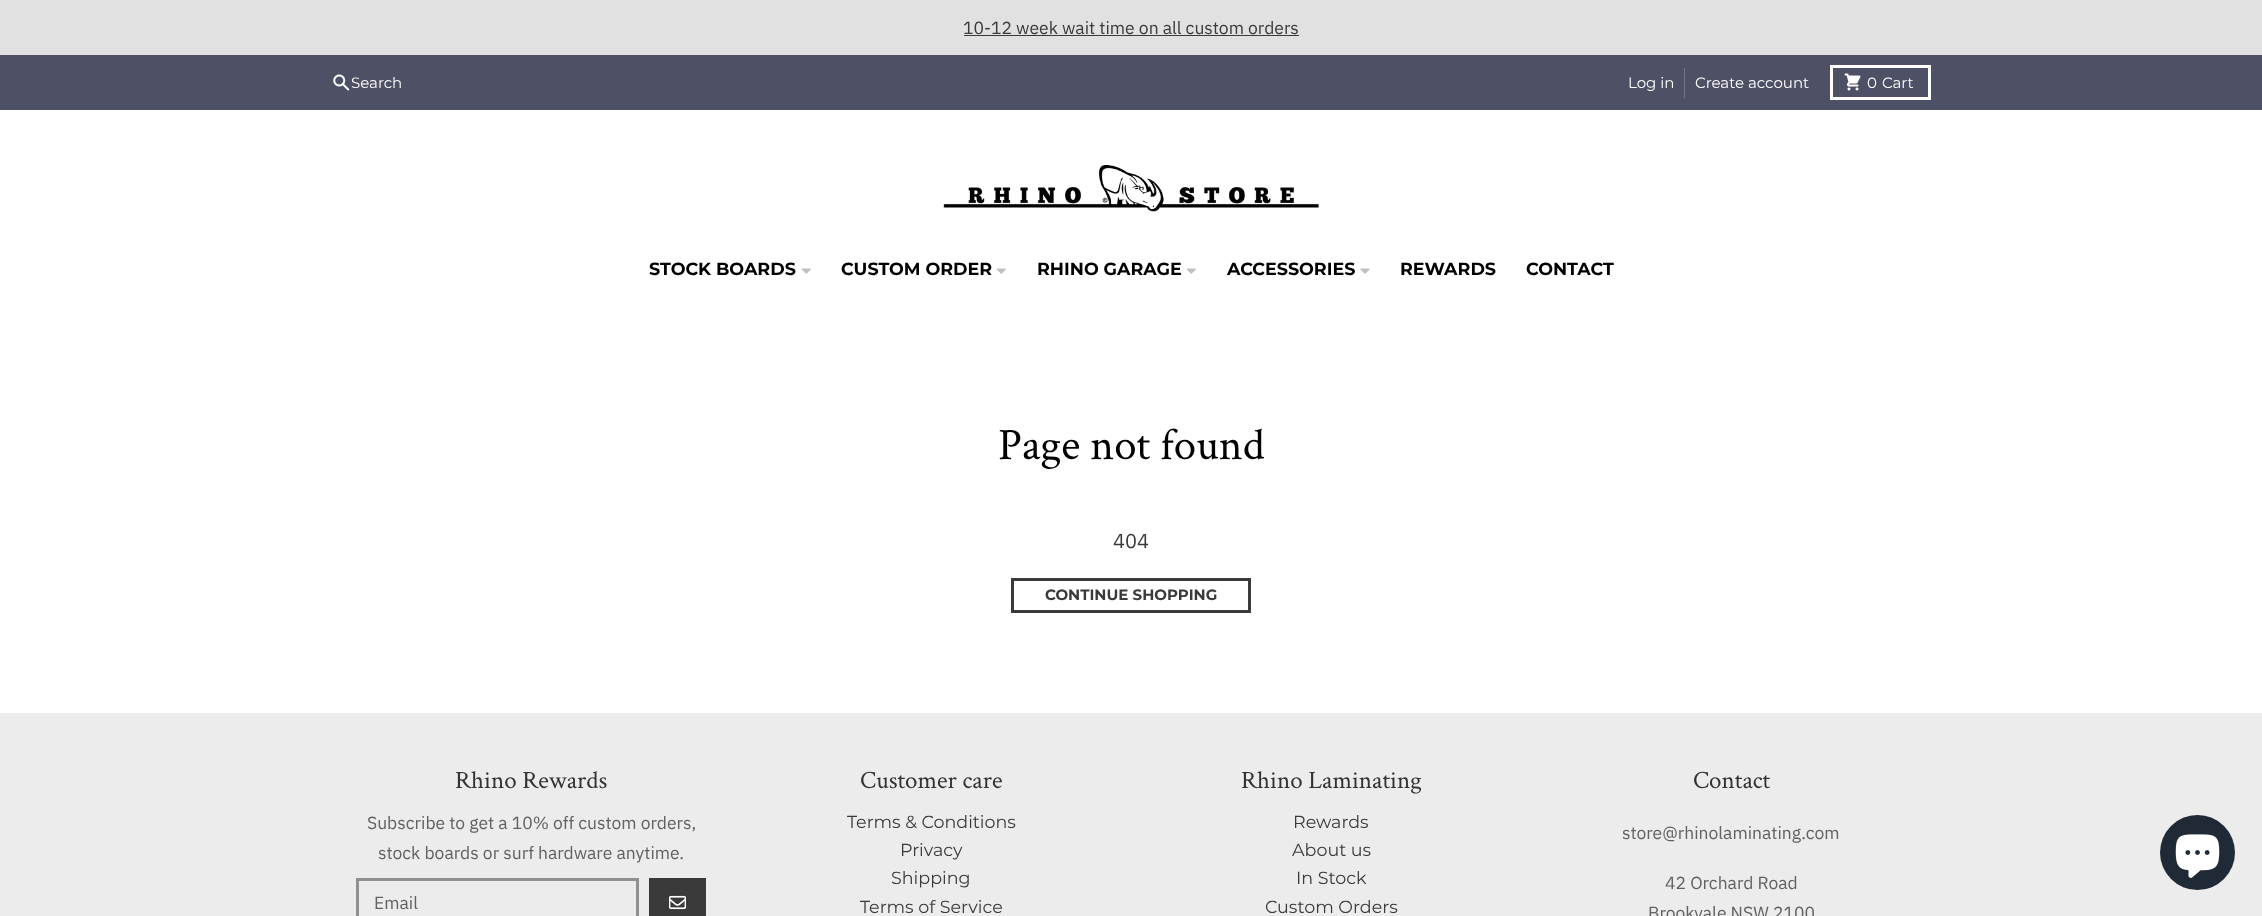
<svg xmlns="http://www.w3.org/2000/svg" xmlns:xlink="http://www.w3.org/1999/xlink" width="2262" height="916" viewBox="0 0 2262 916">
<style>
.cls-1{font:17.5px IBM Plex Sans;fill:#3a3a3a}
.cls-2{font:15px Montserrat;fill:#ffffff}
.cls-3{font:bold 17.5px Montserrat;fill:#000000}
.cls-4{font:45px Crimson Text;fill:#000000}
.cls-5{font:20px IBM Plex Sans;fill:#3a3a3a}
.cls-6{font:bold 15px Montserrat;fill:#3a3a3a}
.cls-7{font:25px Crimson Text;fill:#333333}
.cls-8{font:17.5px IBM Plex Sans;fill:#616161}
.cls-9{font:17.5px Montserrat;fill:#3a3a3a}
</style>
<rect width="100%" height="100%" fill="#ececec"/>
<rect fill="#e1e1e1" x="0" y="0" width="2262" height="55"/>
<rect fill="#3a3a3a" x="964" y="35" width="335" height="1"/>
<rect fill="#4e5166" x="0" y="55" width="2262" height="55"/>
<image xlink:href="image0.png" x="333" y="74" width="17" height="17"/>
<rect fill="#717485" x="1684" y="68" width="1" height="30"/>
<rect fill="none" stroke="#ffffff" stroke-width="3" x="1831.5" y="66.5" width="98" height="32"/>
<image xlink:href="image1.png" x="1844" y="73" width="17" height="18"/>
<rect fill="#ffffff" x="0" y="110" width="2262" height="603"/>
<image xlink:href="image2.png" x="943" y="165" width="376" height="47"/>
<image xlink:href="image3.png" x="801" y="268" width="10" height="6"/>
<image xlink:href="image3.png" x="996" y="268" width="10" height="6"/>
<image xlink:href="image3.png" x="1186" y="268" width="10" height="6"/>
<image xlink:href="image4.png" x="1360" y="268" width="10" height="6"/>
<rect fill="none" stroke="#3a3a3a" stroke-width="3" x="1012.5" y="579.5" width="237" height="32"/>
<rect fill="none" stroke="#909090" stroke-width="3" x="357.5" y="879.5" width="280" height="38"/>
<rect fill="#3a3a3a" x="649" y="878" width="57" height="38"/>
<image xlink:href="image5.png" x="669" y="895" width="17" height="15"/>
<circle fill="#202a36" cx="2197.5" cy="852.5" r="37.5"/>
<image xlink:href="image6.png" x="2175" y="834" width="45" height="44"/>
<text class="cls-1" x="963" y="34">10-12 week wait time on all custom orders</text>
<text class="cls-2" x="351" y="88">Search</text>
<text class="cls-2" x="1628" y="88">Log in</text>
<text class="cls-2" x="1695" y="88">Create account</text>
<text class="cls-2" x="1867" y="88">0</text>
<text class="cls-2" x="1882" y="88">Cart</text>
<text class="cls-3" x="649" y="275">STOCK BOARDS</text>
<text class="cls-3" x="841" y="275">CUSTOM ORDER</text>
<text class="cls-3" x="1037" y="275">RHINO GARAGE</text>
<text class="cls-3" x="1227" y="275">ACCESSORIES</text>
<text class="cls-3" x="1400" y="275">REWARDS</text>
<text class="cls-3" x="1526" y="275">CONTACT</text>
<text class="cls-4" x="998" y="459">Page not found</text>
<text class="cls-5" x="1113" y="548">404</text>
<text class="cls-6" x="1045" y="600">CONTINUE SHOPPING</text>
<text class="cls-7" x="455" y="788">Rhino Rewards</text>
<text class="cls-8" x="367" y="829">Subscribe to get a 10% off custom orders,</text>
<text class="cls-8" x="378" y="859">stock boards or surf hardware anytime.</text>
<text class="cls-8" x="374" y="909">Email</text>
<text class="cls-7" x="860" y="788">Customer care</text>
<text class="cls-9" x="847" y="828">Terms &amp; Conditions</text>
<text class="cls-9" x="900" y="856">Privacy</text>
<text class="cls-9" x="891" y="884">Shipping</text>
<text class="cls-9" x="860" y="913">Terms of Service</text>
<text class="cls-7" x="1241" y="788">Rhino Laminating</text>
<text class="cls-9" x="1293" y="828">Rewards</text>
<text class="cls-9" x="1292" y="856">About us</text>
<text class="cls-9" x="1296" y="884">In Stock</text>
<text class="cls-9" x="1265" y="913">Custom Orders</text>
<text class="cls-7" x="1693" y="788">Contact</text>
<text class="cls-8" x="1622" y="839">store@rhinolaminating.com</text>
<text class="cls-8" x="1665" y="889">42 Orchard Road</text>
<text class="cls-8" x="1648" y="919">Brookvale NSW 2100</text>
</svg>
